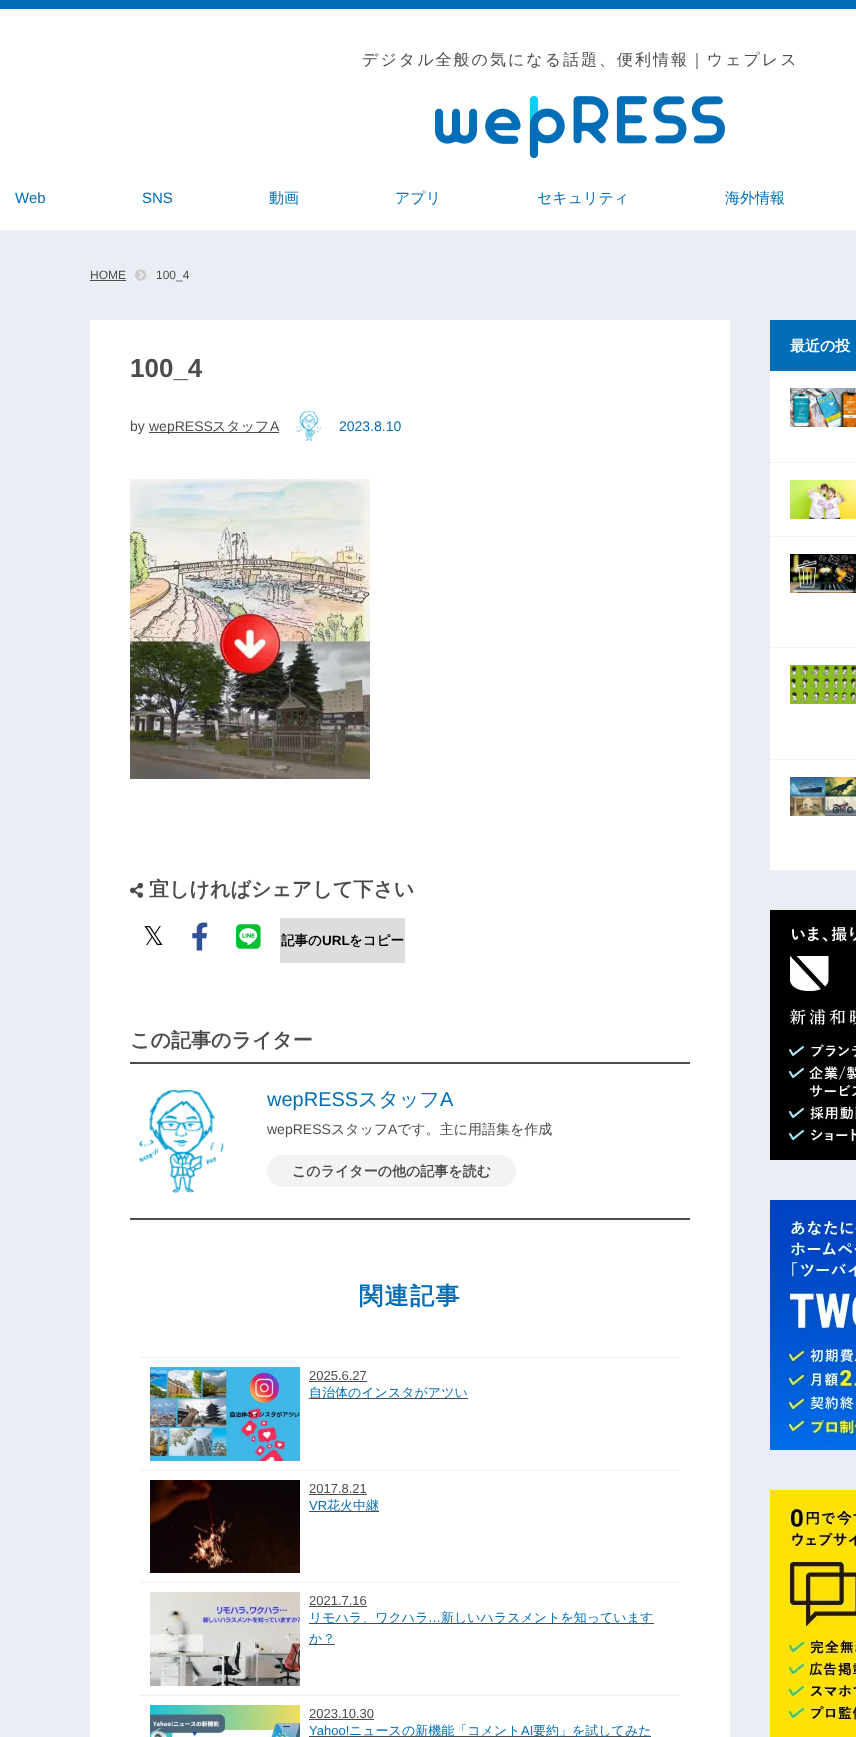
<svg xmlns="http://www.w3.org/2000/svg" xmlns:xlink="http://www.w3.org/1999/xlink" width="856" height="1737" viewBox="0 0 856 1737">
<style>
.cls-1{font:500 16px WenQuanYi Zen Hei;letter-spacing:2px;fill:#4c4c4c}
.cls-2{font:15px Liberation Sans;fill:#036eb8}
.cls-3{font:500 15px WenQuanYi Zen Hei;fill:#036eb8}
.cls-4{font:12px Liberation Sans;fill:#4c4c4c}
.cls-5{font:bold 15px WenQuanYi Zen Hei;fill:#ffffff}
.cls-6{font:bold 26px Liberation Sans;fill:#4c4c4c}
.cls-7{font:14px Liberation Sans;fill:#4c4c4c}
.cls-8{font:500 14px WenQuanYi Zen Hei;fill:#4c4c4c}
.cls-9{font:14px Liberation Sans;fill:#036eb8}
.cls-10{font:bold 20px WenQuanYi Zen Hei;fill:#4c4c4c}
.cls-11{font:26px DejaVu Sans;fill:#000000}
.cls-12{font:bold 13.5px WenQuanYi Zen Hei;fill:#000000}
.cls-13{font:bold 13.5px Liberation Sans;fill:#000000}
.cls-14{font:20px Liberation Sans;fill:#036eb8}
.cls-15{font:500 20px WenQuanYi Zen Hei;fill:#036eb8}
.cls-16{font:bold 14px WenQuanYi Zen Hei;fill:#4c4c4c}
.cls-17{font:bold 24px WenQuanYi Zen Hei;letter-spacing:1.5px;fill:#036eb8}
.cls-18{font:13px Liberation Sans;fill:#4c4c4c}
.cls-19{font:500 13px WenQuanYi Zen Hei;fill:#036eb8}
.cls-20{font:13px Liberation Sans;fill:#036eb8}
</style>
<rect width="100%" height="100%" fill="#ffffff"/>
<rect fill="#036eb8" x="0" y="0" width="856" height="9"/>
<image xlink:href="image0.png" x="435" y="96" width="290" height="62"/>
<rect fill="#ebedf5" x="0" y="230" width="856" height="1507"/>
<rect fill="#4c4c4c" x="90" y="280" width="36" height="1"/>
<image xlink:href="image1.png" x="135" y="269" width="12" height="12"/>
<rect fill="#036eb8" x="770" y="320" width="86" height="51"/>
<rect fill="#ffffff" x="770" y="371" width="86" height="499"/>
<rect fill="#f2f2f2" x="770" y="462" width="86" height="1"/>
<image xlink:href="image2.png" x="790" y="388" width="66" height="39"/>
<rect fill="#f2f2f2" x="770" y="536" width="86" height="1"/>
<image xlink:href="image3.png" x="790" y="480" width="66" height="39"/>
<rect fill="#f2f2f2" x="770" y="647" width="86" height="1"/>
<image xlink:href="image4.png" x="790" y="554" width="66" height="39"/>
<rect fill="#f2f2f2" x="770" y="759" width="86" height="1"/>
<image xlink:href="image5.png" x="790" y="665" width="66" height="39"/>
<image xlink:href="image6.png" x="790" y="777" width="66" height="39"/>
<image xlink:href="image7.png" x="770" y="910" width="86" height="250"/>
<image xlink:href="image8.png" x="770" y="1200" width="86" height="250"/>
<image xlink:href="image9.png" x="770" y="1490" width="86" height="247"/>
<rect fill="#ffffff" x="90" y="320" width="640" height="1417"/>
<rect fill="#4c4c4c" x="149" y="432" width="130" height="1"/>
<image xlink:href="image10.png" x="296" y="411" width="26" height="30"/>
<image xlink:href="image11.png" x="130" y="479" width="240" height="300"/>
<image xlink:href="image12.png" x="130" y="882" width="14" height="16"/>
<image xlink:href="image13.png" x="192" y="922" width="16" height="29"/>
<image xlink:href="image14.png" x="236" y="924" width="25" height="25"/>
<rect fill="#dddddd" x="280" y="918" width="125" height="45"/>
<rect fill="#4c4c4c" x="130" y="1062" width="560" height="2"/>
<rect fill="#4c4c4c" x="130" y="1218" width="560" height="2"/>
<image xlink:href="image15.png" x="138" y="1090" width="86" height="103"/>
<rect fill="#f1f3f4" x="267" y="1155" width="249" height="32" rx="16"/>
<rect fill="#eeeeee" x="140" y="1357" width="540" height="1"/>
<rect fill="#eeeeee" x="140" y="1470" width="540" height="1"/>
<image xlink:href="image16.png" x="150" y="1367" width="150" height="94"/>
<rect fill="#4c4c4c" x="309" y="1381" width="58" height="1"/>
<rect fill="#4c4c4c" x="309" y="1398" width="159" height="1"/>
<rect fill="#eeeeee" x="140" y="1582" width="540" height="1"/>
<image xlink:href="image17.png" x="150" y="1480" width="150" height="93"/>
<rect fill="#4c4c4c" x="309" y="1494" width="58" height="1"/>
<rect fill="#4c4c4c" x="309" y="1511" width="70" height="1"/>
<rect fill="#eeeeee" x="140" y="1695" width="540" height="1"/>
<image xlink:href="image18.png" x="150" y="1592" width="150" height="94"/>
<rect fill="#4c4c4c" x="309" y="1606" width="58" height="1"/>
<rect fill="#4c4c4c" x="309" y="1623" width="345" height="1"/>
<rect fill="#4c4c4c" x="309" y="1644" width="26" height="1"/>
<image xlink:href="image19.png" x="150" y="1705" width="150" height="32"/>
<rect fill="#4c4c4c" x="309" y="1719" width="65" height="1"/>
<rect fill="#4c4c4c" x="309" y="1736" width="342" height="1"/>
<text class="cls-1" x="362" y="65">デジタル全般の気になる話題、便利情報｜ウェプレス</text>
<text class="cls-2" x="15" y="203">Web</text>
<text class="cls-2" x="142" y="203">SNS</text>
<text class="cls-3" x="269" y="203">動画</text>
<text class="cls-3" x="395" y="203">アプリ</text>
<text class="cls-3" x="537" y="203">セキュリティ</text>
<text class="cls-3" x="725" y="203">海外情報</text>
<text class="cls-4" x="90" y="279">HOME</text>
<text class="cls-4" x="156" y="279">100_4</text>
<text class="cls-5" x="790" y="351">最近の投</text>
<text class="cls-6" x="130" y="377">100_4</text>
<text class="cls-7" x="130" y="431">by</text>
<text class="cls-7" x="149" y="431">wepRESS</text>
<text class="cls-8" x="212" y="431">スタッフ</text>
<text class="cls-7" x="270" y="431">A</text>
<text class="cls-9" x="339" y="431">2023.8.10</text>
<text class="cls-10" x="149" y="896">宜しければシェアして下さい</text>
<text class="cls-11" x="143" y="945">𝕏</text>
<text class="cls-12" x="281" y="945">記事の</text>
<text class="cls-13" x="322" y="945">URL</text>
<text class="cls-12" x="349" y="945">をコピー</text>
<text class="cls-10" x="130" y="1047">この記事のライター</text>
<text class="cls-14" x="267" y="1106">wepRESS</text>
<text class="cls-15" x="358" y="1106">スタッフ</text>
<text class="cls-14" x="440" y="1106">A</text>
<text class="cls-7" x="267" y="1134">wepRESS</text>
<text class="cls-8" x="331" y="1134">スタッフ</text>
<text class="cls-7" x="388" y="1134">A</text>
<text class="cls-8" x="397" y="1134">です。主に用語集を作成</text>
<text class="cls-16" x="292" y="1176">このライターの他の記事を読む</text>
<text class="cls-17" x="359" y="1304">関連記事</text>
<text class="cls-18" x="309" y="1380">2025.6.27</text>
<text class="cls-19" x="309" y="1397">自治体のインスタがアツい</text>
<text class="cls-18" x="309" y="1493">2017.8.21</text>
<text class="cls-20" x="309" y="1510">VR</text>
<text class="cls-19" x="327" y="1510">花火中継</text>
<text class="cls-18" x="309" y="1605">2021.7.16</text>
<text class="cls-19" x="309" y="1622">リモハラ、ワクハラ</text>
<text class="cls-20" x="428" y="1622">…</text>
<text class="cls-19" x="441" y="1622">新しいハラスメントを知っています</text>
<text class="cls-19" x="309" y="1643">か？</text>
<text class="cls-18" x="309" y="1718">2023.10.30</text>
<text class="cls-20" x="309" y="1735">Yahoo!</text>
<text class="cls-19" x="349" y="1735">ニュースの新機能「コメント</text>
<text class="cls-20" x="521" y="1735">AI</text>
<text class="cls-19" x="533" y="1735">要約」を試してみた</text>
</svg>
